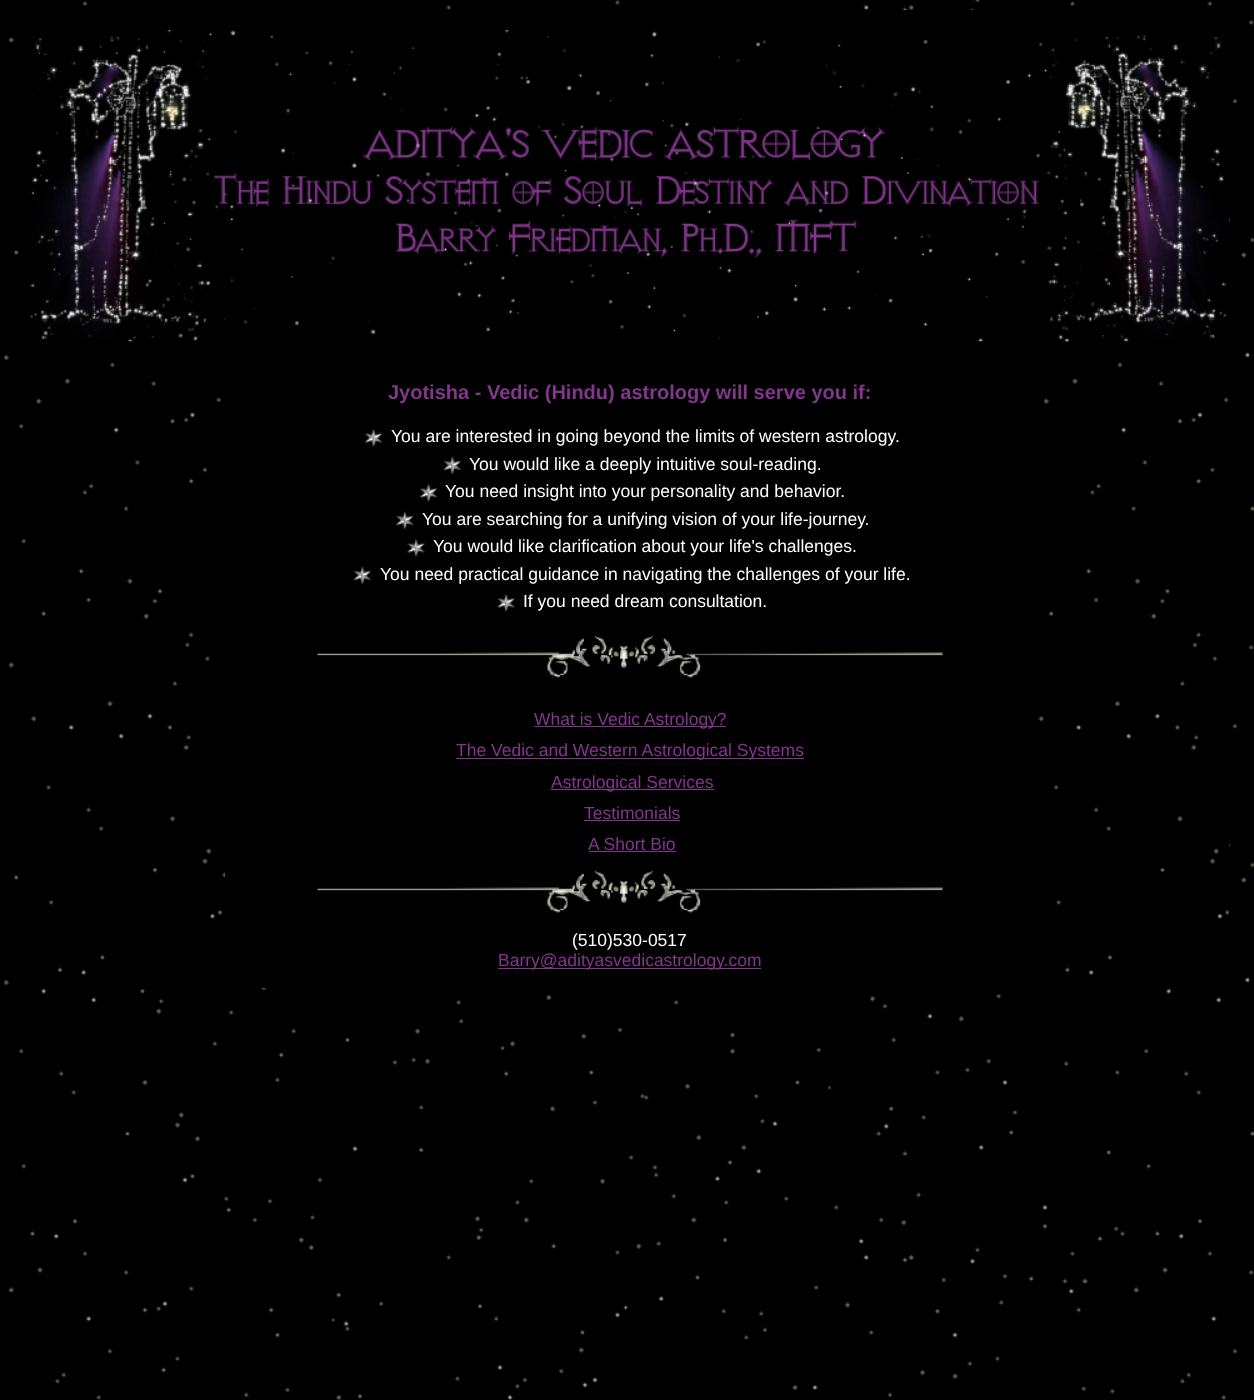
<svg xmlns="http://www.w3.org/2000/svg" xmlns:xlink="http://www.w3.org/1999/xlink" width="1254" height="1400" viewBox="0 0 1254 1400">
<style>
.cls-1{font:bold 20px Liberation Sans;fill:#82378c}
.cls-2{font:17.5px Liberation Sans;fill:#ffffff}
.cls-3{font:17.5px Liberation Sans;fill:#82378c}
</style>
<rect width="100%" height="100%" fill="#000000"/>
<image xlink:href="image0.png" x="3" y="0" width="1251" height="1400"/>
<rect fill="#000000" x="30" y="10" width="1199" height="978"/>
<image xlink:href="image1.png" x="30" y="30" width="1197" height="312"/>
<image xlink:href="image2.png" x="31" y="362" width="194" height="626"/>
<image xlink:href="image3.png" x="365" y="428" width="18" height="19"/>
<image xlink:href="image4.png" x="443" y="456" width="19" height="19"/>
<image xlink:href="image5.png" x="420" y="483" width="18" height="19"/>
<image xlink:href="image6.png" x="396" y="511" width="18" height="19"/>
<image xlink:href="image7.png" x="407" y="538" width="18" height="19"/>
<image xlink:href="image8.png" x="353" y="566" width="19" height="19"/>
<image xlink:href="image7.png" x="497" y="593" width="18" height="19"/>
<image xlink:href="image9.png" x="317" y="636" width="626" height="42"/>
<rect fill="#82378c" x="534" y="726" width="192" height="1"/>
<rect fill="#82378c" x="456" y="758" width="348" height="1"/>
<rect fill="#82378c" x="551" y="789" width="163" height="1"/>
<rect fill="#82378c" x="584" y="820" width="96" height="1"/>
<rect fill="#82378c" x="589" y="851" width="87" height="1"/>
<image xlink:href="image9.png" x="317" y="871" width="626" height="42"/>
<rect fill="#82378c" x="498" y="968" width="263" height="1"/>
<image xlink:href="image10.png" x="1038" y="362" width="191" height="626"/>
<text class="cls-1" x="388" y="399">Jyotisha - Vedic (Hindu) astrology will serve you if:</text>
<text class="cls-2" x="391" y="442">You are interested in going beyond the limits of western astrology.</text>
<text class="cls-2" x="469" y="470">You would like a deeply intuitive soul-reading.</text>
<text class="cls-2" x="445" y="497">You need insight into your personality and behavior.</text>
<text class="cls-2" x="422" y="525">You are searching for a unifying vision of your life-journey.</text>
<text class="cls-2" x="433" y="552">You would like clarification about your life's challenges.</text>
<text class="cls-2" x="380" y="580">You need practical guidance in navigating the challenges of your life.</text>
<text class="cls-2" x="523" y="607">If you need dream consultation.</text>
<text class="cls-3" x="534" y="725">What is Vedic Astrology?</text>
<text class="cls-3" x="456" y="756">The Vedic and Western Astrological Systems</text>
<text class="cls-3" x="551" y="788">Astrological Services</text>
<text class="cls-3" x="584" y="819">Testimonials</text>
<text class="cls-3" x="588" y="850">A Short Bio</text>
<text class="cls-2" x="572" y="946">(510)530-0517</text>
<text class="cls-3" x="498" y="966">Barry@adityasvedicastrology.com</text>
</svg>
